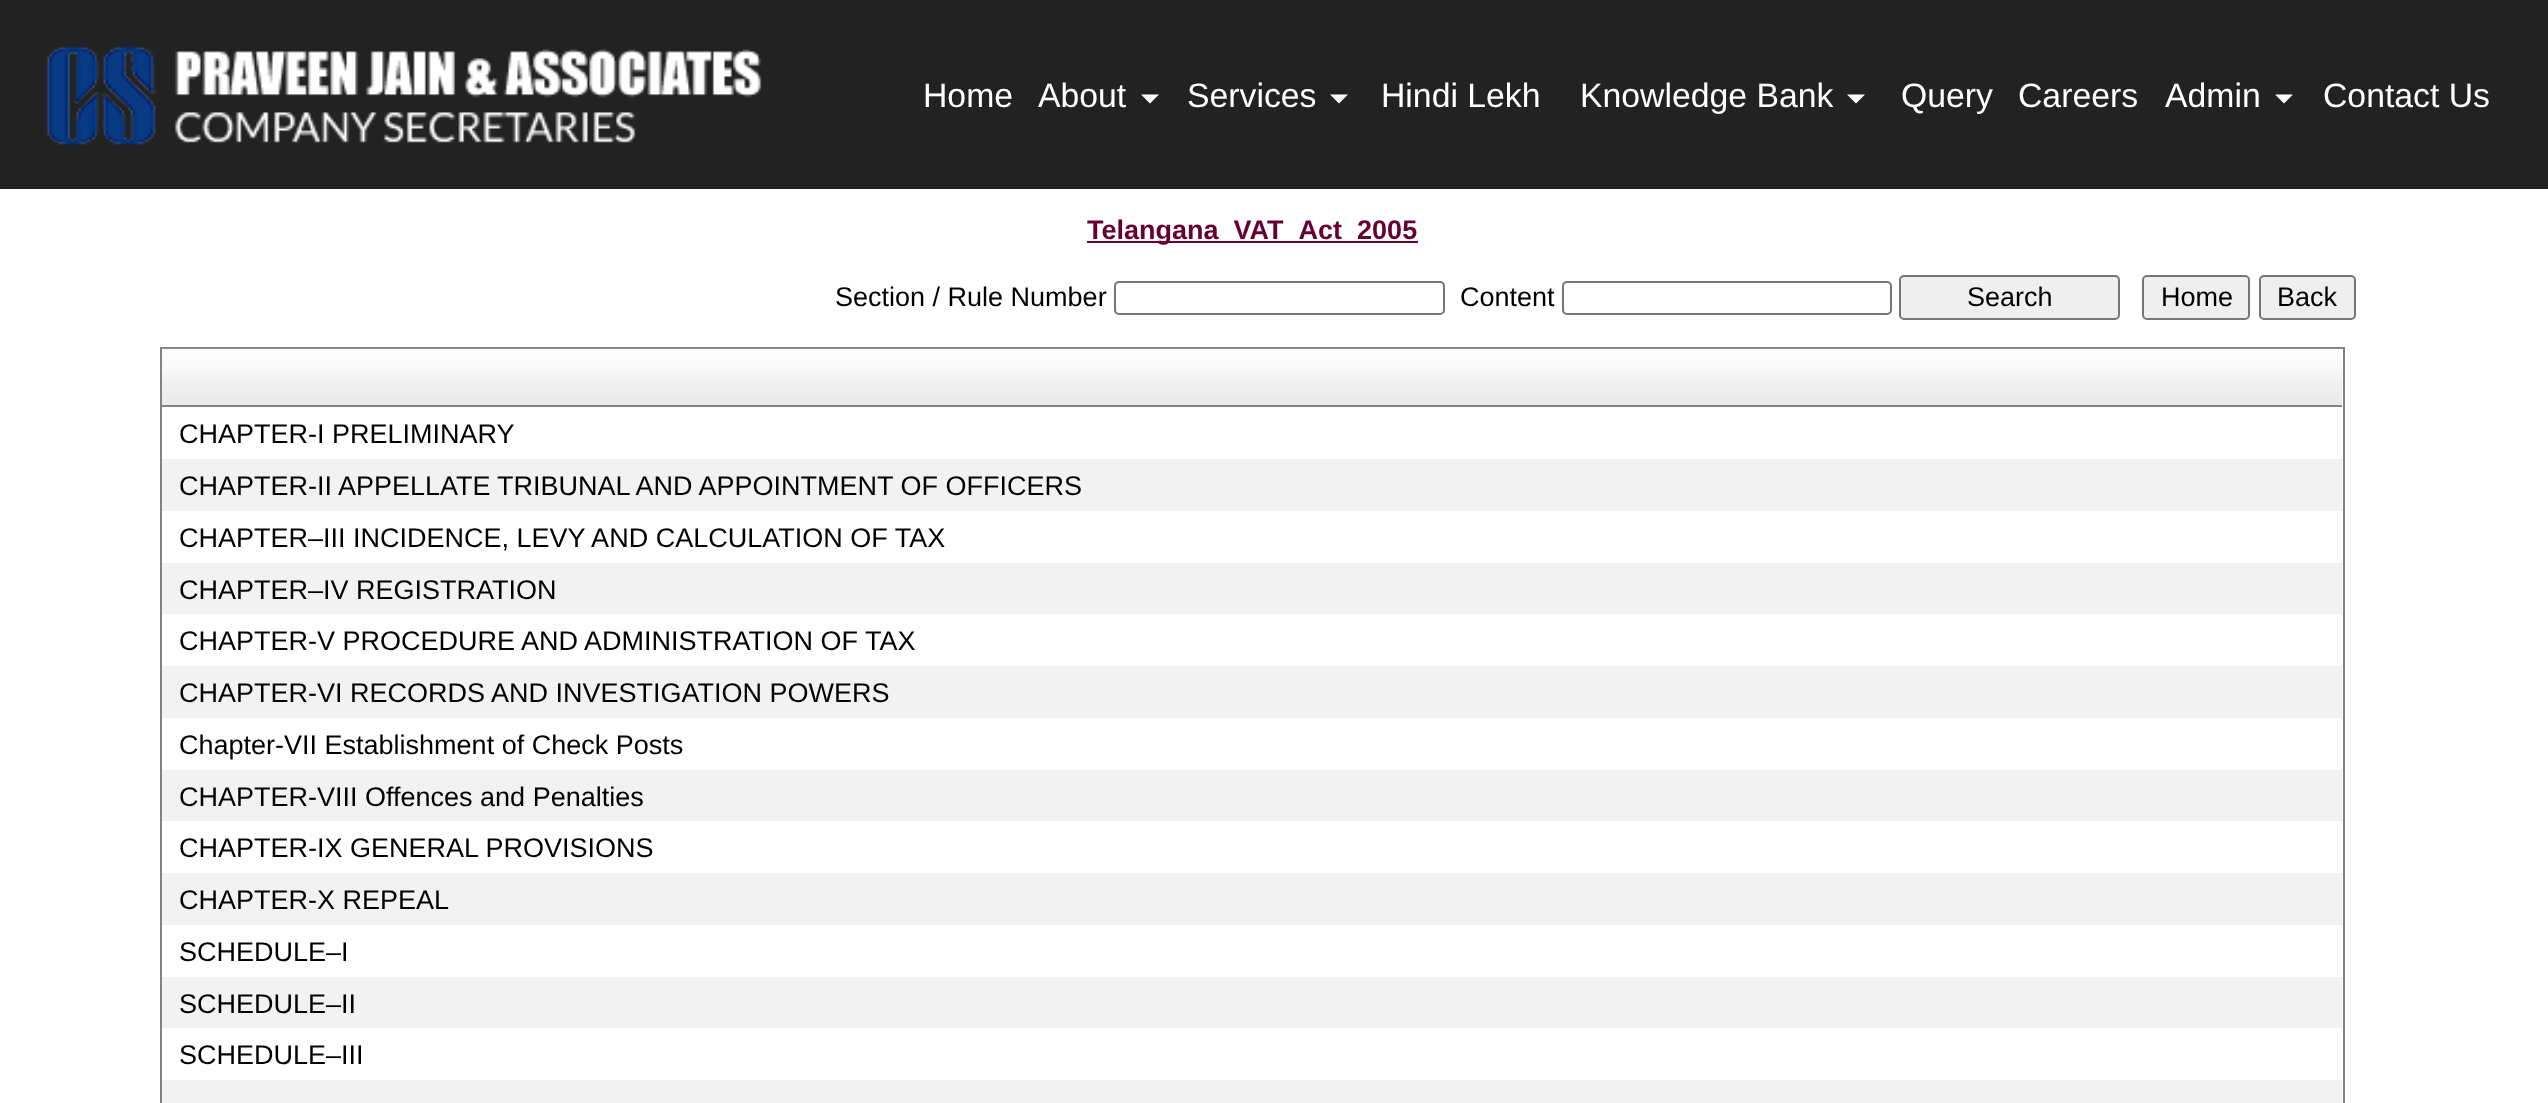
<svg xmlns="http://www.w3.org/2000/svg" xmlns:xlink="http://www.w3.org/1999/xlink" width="2548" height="1103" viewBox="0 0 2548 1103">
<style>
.cls-1{font:33.75px Liberation Sans;fill:#ffffff}
.cls-2{font:bold 27px Liberation Sans;fill:#660033}
.cls-3{font:27px Liberation Sans;fill:#000000}
</style>
<rect width="100%" height="100%" fill="#ffffff"/>
<rect fill="#222222" x="0" y="0" width="2548" height="2"/>
<rect fill="#222222" x="0" y="2" width="2548" height="187"/>
<image xlink:href="image0.png" x="46" y="46" width="716" height="99"/>
<path fill="#ffffff" d="M1141 94.5H1159L1150 103.5Z"/>
<path fill="#ffffff" d="M1330 94.5H1348L1339 103.5Z"/>
<path fill="#ffffff" d="M1847 94.5H1865L1856 103.5Z"/>
<path fill="#ffffff" d="M2275 94.5H2293L2284 103.5Z"/>
<rect fill="#660033" x="1087" y="241" width="331" height="2"/>
<rect fill="none" stroke="#767676" stroke-width="2" x="1115" y="282" width="329" height="32" rx="4"/>
<rect fill="none" stroke="#767676" stroke-width="2" x="1563" y="282" width="328" height="32" rx="4"/>
<rect fill="#efefef" stroke="#767676" stroke-width="2" x="1900" y="276" width="219" height="43" rx="4"/>
<rect fill="#efefef" stroke="#767676" stroke-width="2" x="2143" y="276" width="106" height="43" rx="4"/>
<rect fill="#efefef" stroke="#767676" stroke-width="2" x="2260" y="276" width="95" height="43" rx="4"/>
<rect fill="none" stroke="#828282" stroke-width="2" x="161" y="348" width="2183" height="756"/>
<rect fill="#eaeaea" x="162" y="349" width="2180" height="56"/>
<image xlink:href="image1.png" x="162" y="348" width="2181" height="56"/>
<rect fill="#828282" x="162" y="405" width="2180" height="2"/>
<rect fill="#f2f2f2" x="162" y="459" width="2180" height="52"/>
<rect fill="#f2f2f2" x="162" y="563" width="2180" height="51"/>
<rect fill="#f2f2f2" x="162" y="666" width="2180" height="52"/>
<rect fill="#f2f2f2" x="162" y="770" width="2180" height="51"/>
<rect fill="#f2f2f2" x="162" y="873" width="2180" height="52"/>
<rect fill="#f2f2f2" x="162" y="977" width="2180" height="51"/>
<rect fill="#f2f2f2" x="162" y="1080" width="2180" height="23"/>
<text class="cls-1" x="923" y="107">Home</text>
<text class="cls-1" x="1038" y="107">About</text>
<text class="cls-1" x="1187" y="107">Services</text>
<text class="cls-1" x="1381" y="107">Hindi Lekh</text>
<text class="cls-1" x="1580" y="107">Knowledge Bank</text>
<text class="cls-1" x="1901" y="107">Query</text>
<text class="cls-1" x="2018" y="107">Careers</text>
<text class="cls-1" x="2165" y="107">Admin</text>
<text class="cls-1" x="2323" y="107">Contact Us</text>
<text class="cls-2" x="1087" y="239">Telangana_VAT_Act_2005</text>
<text class="cls-3" x="835" y="306">Section / Rule Number</text>
<text class="cls-3" x="1460" y="306">Content</text>
<text class="cls-3" x="1967" y="306">Search</text>
<text class="cls-3" x="2161" y="306">Home</text>
<text class="cls-3" x="2277" y="306">Back</text>
<text class="cls-3"><tspan x="179" y="443">CHAPTER-I PRELIMINARY</tspan><tspan x="179" y="495">CHAPTER-II APPELLATE</tspan></text>
<text class="cls-3" x="497" y="495">TRIBUNAL AND APPOINTMENT OF OFFICERS</text>
<text class="cls-3"><tspan x="179" y="547">CHAPTER–III INCIDENCE, LEVY AND CALCULATION OF TAX</tspan><tspan x="179" y="599">CHAPTER–IV REGISTRATION</tspan><tspan x="179" y="650">CHAPTER-V PROCEDURE AND ADMINISTRATION OF TAX</tspan><tspan x="179" y="702">CHAPTER-VI RECORDS AND INVESTIGATION POWERS</tspan><tspan x="179" y="754">Chapter-VII Establishment of Check Posts</tspan><tspan x="179" y="806">CHAPTER-VIII Offences and Penalties</tspan><tspan x="179" y="857">CHAPTER-IX GENERAL PROVISIONS</tspan><tspan x="179" y="909">CHAPTER-X REPEAL</tspan><tspan x="179" y="961">SCHEDULE–I</tspan><tspan x="179" y="1013">SCHEDULE–II</tspan><tspan x="179" y="1064">SCHEDULE–III</tspan></text>
</svg>
